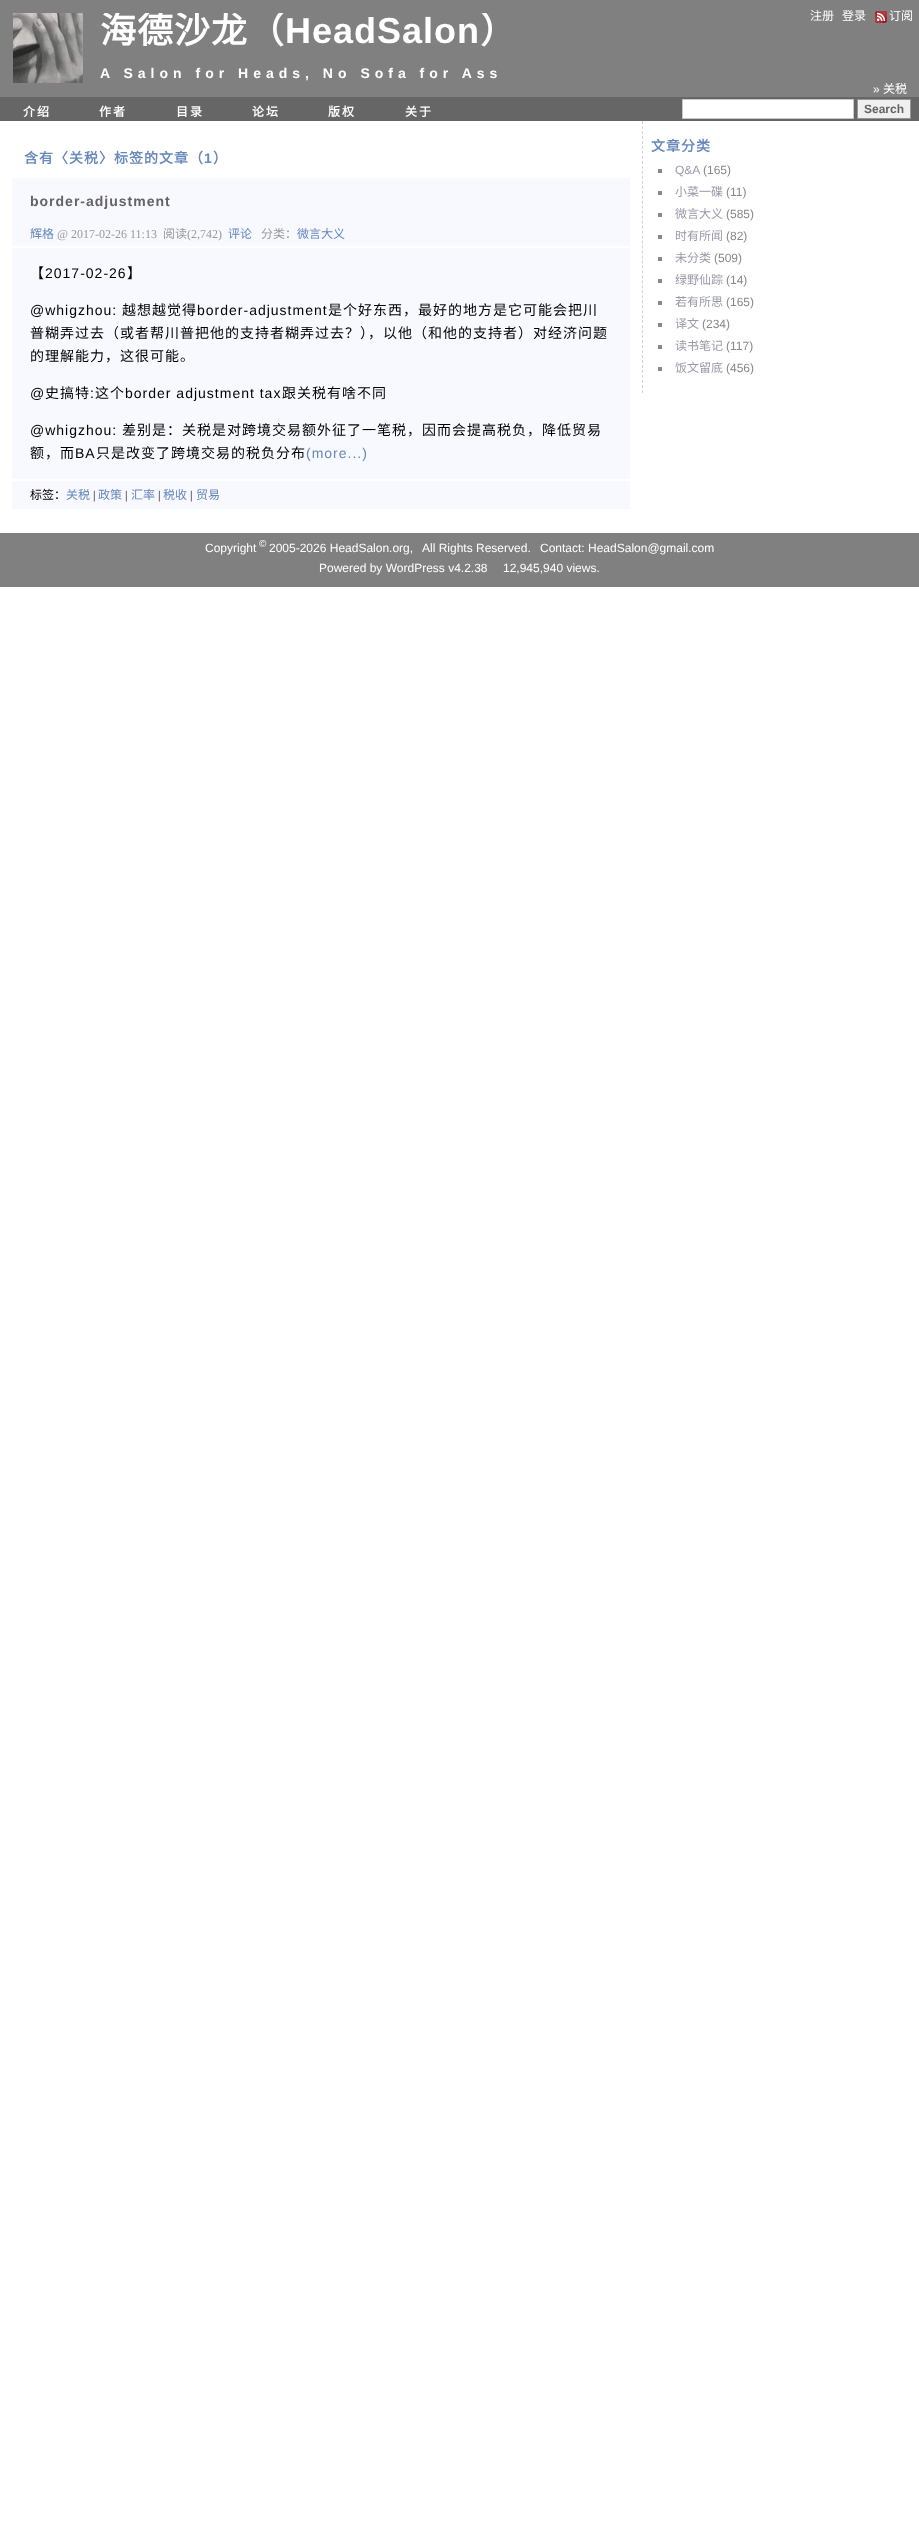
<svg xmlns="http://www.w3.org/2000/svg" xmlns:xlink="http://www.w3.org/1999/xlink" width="919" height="2526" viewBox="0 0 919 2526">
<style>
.cls-1{font:bold 36px Noto Sans CJK SC;letter-spacing:1px;fill:#ffffff}
.cls-2{font:bold 36px Liberation Sans;letter-spacing:1px;fill:#ffffff}
.cls-3{font:bold 14px Liberation Sans;letter-spacing:5px;fill:#ffffff}
.cls-4{font:12px Noto Sans CJK SC;fill:#ffffff}
.cls-5{font:12px Liberation Sans;fill:#ffffff}
.cls-6{font:bold 12px Noto Sans CJK SC;letter-spacing:2px;fill:#ffffff}
.cls-7{font:bold 12px Liberation Sans;fill:#646464}
.cls-8{font:bold 14px Noto Sans CJK SC;letter-spacing:1px;fill:#6688bb}
.cls-9{font:bold 14px Liberation Sans;letter-spacing:1px;fill:#6688bb}
.cls-10{font:bold 14px Liberation Sans;letter-spacing:1px;fill:#646464}
.cls-11{font:12px Noto Sans CJK SC;fill:#6688bb}
.cls-12{font:12px Liberation Serif;fill:#999999}
.cls-13{font:12px Noto Sans CJK SC;fill:#999999}
.cls-14{font:14px Noto Sans CJK SC;letter-spacing:1px;fill:#000000}
.cls-15{font:14px Liberation Sans;letter-spacing:1px;fill:#000000}
.cls-16{font:14px Liberation Sans;letter-spacing:1px;fill:#6688bb}
.cls-17{font:12px Noto Sans CJK SC;fill:#000000}
.cls-18{font:12px Liberation Serif;fill:#000000}
.cls-19{font:12px Liberation Sans;fill:#9999aa}
.cls-20{font:12px Liberation Sans;fill:#888888}
.cls-21{font:12px Noto Sans CJK SC;fill:#9999aa}
.cls-22{font:10px Liberation Sans;fill:#ffffff}
</style>
<defs>
<clipPath id="clip1"><rect x="100" y="13" width="430" height="36"/></clipPath>
</defs>
<rect width="100%" height="100%" fill="#ffffff"/>
<rect fill="#808080" x="0" y="0" width="919" height="97"/>
<image xlink:href="image0.png" x="13" y="13" width="70" height="70"/>
<image xlink:href="image1.png" x="875" y="11" width="12" height="12"/>
<rect fill="#666666" x="0" y="97" width="919" height="24"/>
<rect fill="#ffffff" stroke="#c8c8c8" x="682.5" y="99.5" width="171" height="19"/>
<rect fill="#f0f0f0" stroke="#969696" x="857.5" y="99.5" width="53" height="19"/>
<rect fill="#f8f8ff" x="12" y="178" width="618" height="68"/>
<rect fill="#f8f8ff" x="12" y="248" width="618" height="231"/>
<rect fill="#f8f8ff" x="12" y="481" width="618" height="28"/>
<path fill="none" stroke="#d3d3d3" stroke-dasharray="3 1.98" d="M642.5 121V393"/>
<rect fill="#888888" x="658" y="169" width="4" height="4"/>
<rect fill="#888888" x="658" y="191" width="4" height="4"/>
<rect fill="#888888" x="658" y="213" width="4" height="4"/>
<rect fill="#888888" x="658" y="235" width="4" height="4"/>
<rect fill="#888888" x="658" y="257" width="4" height="4"/>
<rect fill="#888888" x="658" y="279" width="4" height="4"/>
<rect fill="#888888" x="658" y="301" width="4" height="4"/>
<rect fill="#888888" x="658" y="323" width="4" height="4"/>
<rect fill="#888888" x="658" y="345" width="4" height="4"/>
<rect fill="#888888" x="658" y="367" width="4" height="4"/>
<rect fill="#808080" x="0" y="533" width="919" height="54"/>
<g clip-path="url(#clip1)">
<text class="cls-1" x="100" y="43">海德沙龙（</text>
</g>
<text class="cls-2" x="285" y="43">HeadSalon</text>
<g clip-path="url(#clip1)">
<text class="cls-1" x="480" y="43">）</text>
</g>
<text class="cls-3" x="100" y="78">A Salon for Heads, No Sofa for Ass</text>
<text class="cls-4" x="810" y="20">注册</text>
<text class="cls-4" x="842" y="20">登录</text>
<text class="cls-4" x="889" y="20">订阅</text>
<text class="cls-5" x="873" y="93">»</text>
<text class="cls-4" x="883" y="93">关税</text>
<text class="cls-6" x="23" y="116">介绍</text>
<text class="cls-6" x="99" y="116">作者</text>
<text class="cls-6" x="176" y="116">目录</text>
<text class="cls-6" x="252" y="116">论坛</text>
<text class="cls-6" x="328" y="116">版权</text>
<text class="cls-6" x="405" y="116">关于</text>
<text class="cls-7" x="864" y="113">Search</text>
<text class="cls-8" x="24" y="163">含有〈关税〉标签的文章（</text>
<text class="cls-9" x="204" y="163">1</text>
<text class="cls-8" x="213" y="163">）</text>
<text class="cls-10" x="30" y="206">border-adjustment</text>
<text class="cls-11" x="30" y="238">辉格</text>
<text class="cls-12" x="57" y="238">@ 2017-02-26 11:13</text>
<text class="cls-13" x="163" y="238">阅读</text>
<text class="cls-12" x="187" y="238">(2,742)</text>
<text class="cls-11" x="228" y="238">评论</text>
<text class="cls-13" x="261" y="238">分类：</text>
<text class="cls-11" x="297" y="238">微言大义</text>
<text class="cls-14" x="30" y="278">【</text>
<text class="cls-15" x="45" y="278">2017-02-26</text>
<text class="cls-14" x="127" y="278">】</text>
<text class="cls-15" x="30" y="315">@whigzhou:</text>
<text class="cls-14" x="122" y="315">越想越觉得</text>
<text class="cls-15" x="197" y="315">border-adjustment</text>
<text class="cls-14" x="328" y="315">是个好东西，最好的地方是它可能会把川</text>
<text class="cls-14"><tspan x="30" y="338">普糊弄过去（或者帮川普把他的支持者糊弄过去？），以他（和他的支持者）对经济问题</tspan><tspan x="30" y="361">的理解能力，这很可能。</tspan></text>
<text class="cls-15" x="30" y="398">@</text>
<text class="cls-14" x="45" y="398">史搞特</text>
<text class="cls-15" x="90" y="398">:</text>
<text class="cls-14" x="95" y="398">这个</text>
<text class="cls-15" x="125" y="398">border adjustment tax</text>
<text class="cls-14" x="282" y="398">跟关税有啥不同</text>
<text class="cls-15" x="30" y="435">@whigzhou:</text>
<text class="cls-14" x="122" y="435">差别是：关税是对跨境交易额外征了一笔税，因而会提高税负，降低贸易</text>
<text class="cls-14" x="30" y="458">额，而</text>
<text class="cls-15" x="75" y="458">BA</text>
<text class="cls-14" x="96" y="458">只是改变了跨境交易的税负分布</text>
<text class="cls-16" x="306" y="458">(more...)</text>
<text class="cls-17" x="30" y="499">标签：</text>
<text class="cls-11" x="66" y="499">关税</text>
<text class="cls-18" x="93" y="499">|</text>
<text class="cls-11" x="98" y="499">政策</text>
<text class="cls-18" x="125" y="499">|</text>
<text class="cls-11" x="131" y="499">汇率</text>
<text class="cls-18" x="158" y="499">|</text>
<text class="cls-11" x="163" y="499">税收</text>
<text class="cls-18" x="190" y="499">|</text>
<text class="cls-11" x="196" y="499">贸易</text>
<text class="cls-8" x="651" y="151">文章分类</text>
<text class="cls-19" x="675" y="174">Q&amp;A</text>
<text class="cls-20" x="703" y="174">(165)</text>
<text class="cls-21" x="675" y="196">小菜一碟</text>
<text class="cls-20" x="726" y="196">(11)</text>
<text class="cls-21" x="675" y="218">微言大义</text>
<text class="cls-20" x="726" y="218">(585)</text>
<text class="cls-21" x="675" y="240">时有所闻</text>
<text class="cls-20" x="726" y="240">(82)</text>
<text class="cls-21" x="675" y="262">未分类</text>
<text class="cls-20" x="714" y="262">(509)</text>
<text class="cls-21" x="675" y="284">绿野仙踪</text>
<text class="cls-20" x="726" y="284">(14)</text>
<text class="cls-21" x="675" y="306">若有所思</text>
<text class="cls-20" x="726" y="306">(165)</text>
<text class="cls-21" x="675" y="328">译文</text>
<text class="cls-20" x="702" y="328">(234)</text>
<text class="cls-21" x="675" y="350">读书笔记</text>
<text class="cls-20" x="726" y="350">(117)</text>
<text class="cls-21" x="675" y="372">饭文留底</text>
<text class="cls-20" x="726" y="372">(456)</text>
<text class="cls-5" x="205" y="552">Copyright</text>
<text class="cls-22" x="259" y="547">©</text>
<text class="cls-5" x="269" y="552">2005-2026 HeadSalon.org,</text>
<text class="cls-5" x="422" y="552">All Rights Reserved.</text>
<text class="cls-5" x="540" y="552">Contact: HeadSalon@gmail.com</text>
<text class="cls-5" x="319" y="572">Powered by WordPress v4.2.38</text>
<text class="cls-5" x="503" y="572">12,945,940 views.</text>
</svg>
